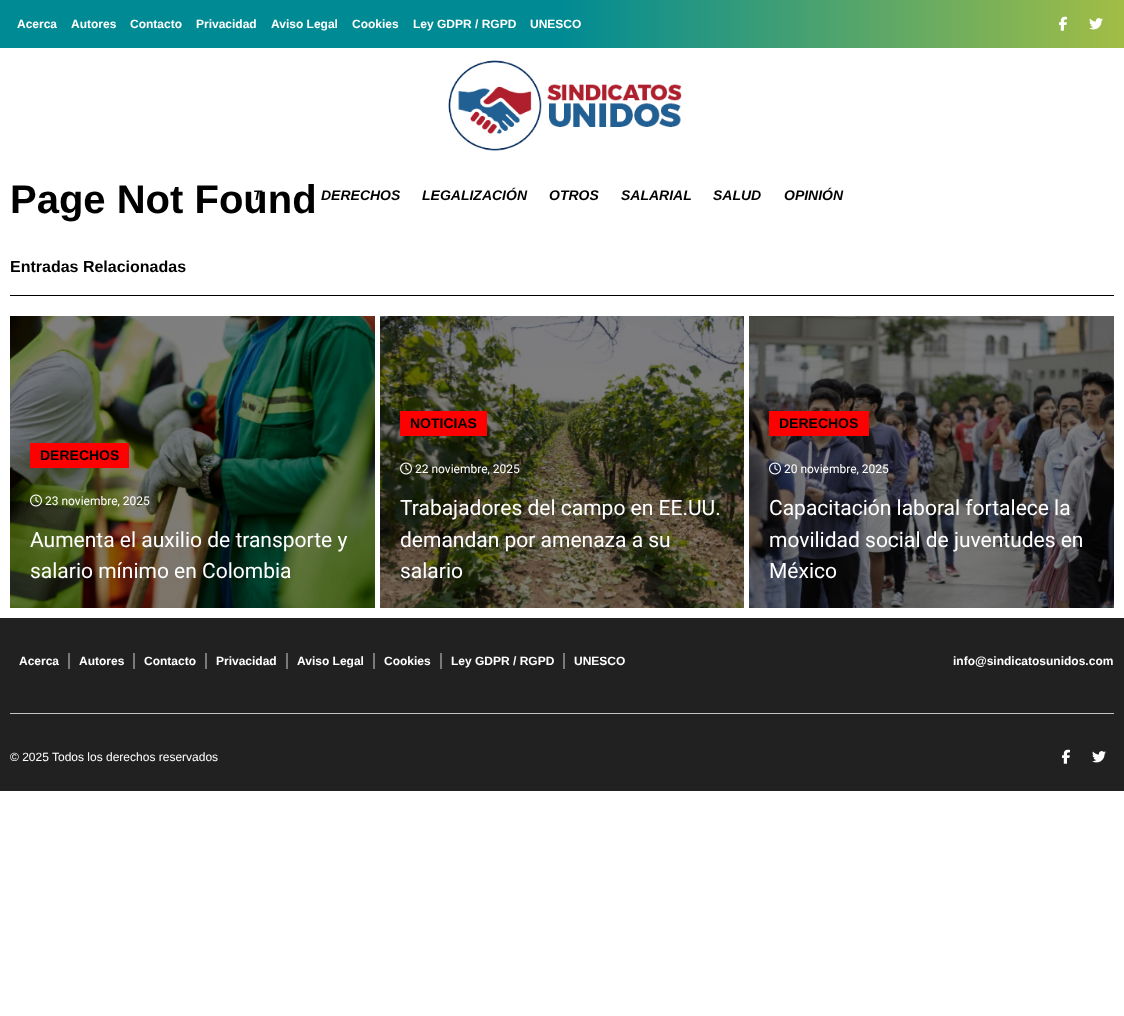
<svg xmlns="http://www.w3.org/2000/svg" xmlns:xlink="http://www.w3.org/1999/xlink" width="1124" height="1016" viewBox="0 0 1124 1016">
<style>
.cls-1{font:bold 12px Liberation Sans;fill:#ffffff}
.cls-2{font:italic bold 14px Liberation Sans;fill:#000000}
.cls-3{font:bold 40px Liberation Sans;fill:#000000}
.cls-4{font:bold 16px Liberation Sans;fill:#000000}
.cls-5{font:bold 14px Liberation Sans;fill:#000000}
.cls-6{font:12px Roboto;fill:#ffffff}
.cls-7{font:21px Roboto;fill:#ffffff}
.cls-8{font:12px Liberation Sans;fill:#ffffff}
</style>
<defs>
<linearGradient id="g1" gradientUnits="userSpaceOnUse" x1="0" y1="24" x2="1124" y2="24"><stop offset="0.5" stop-color="#008b94"/><stop offset="1" stop-color="#a2bd45"/></linearGradient>
</defs>
<rect width="100%" height="100%" fill="#ffffff"/>
<rect fill="url(#g1)" x="0" y="0" width="1124" height="48"/>
<image xlink:href="image0.png" x="1059" y="16" width="8" height="15"/>
<image xlink:href="image1.png" x="1089" y="18" width="14" height="12"/>
<image xlink:href="image2.png" x="448" y="60" width="234" height="91"/>
<rect fill="#000000" x="10" y="295" width="1104" height="1"/>
<image xlink:href="image3.png" x="10" y="316" width="365" height="292"/>
<rect fill="#ff0000" x="30" y="443" width="99" height="25"/>
<image xlink:href="image4.png" x="30" y="494" width="12" height="13"/>
<image xlink:href="image5.png" x="380" y="316" width="364" height="292"/>
<rect fill="#ff0000" x="400" y="411" width="87" height="25"/>
<image xlink:href="image6.png" x="400" y="462" width="12" height="13"/>
<image xlink:href="image7.png" x="749" y="316" width="365" height="292"/>
<rect fill="#ff0000" x="769" y="411" width="100" height="25"/>
<image xlink:href="image8.png" x="769" y="462" width="12" height="13"/>
<rect fill="#212121" x="0" y="618" width="1124" height="173"/>
<rect fill="#7a7a7a" x="68" y="653" width="2" height="16"/>
<rect fill="#7a7a7a" x="133" y="653" width="2" height="16"/>
<rect fill="#7a7a7a" x="205" y="653" width="2" height="16"/>
<rect fill="#7a7a7a" x="286" y="653" width="2" height="16"/>
<rect fill="#7a7a7a" x="373" y="653" width="2" height="16"/>
<rect fill="#7a7a7a" x="440" y="653" width="2" height="16"/>
<rect fill="#7a7a7a" x="563" y="653" width="2" height="16"/>
<rect fill="#c4c4c4" x="10" y="713" width="1104" height="1"/>
<image xlink:href="image9.png" x="1062" y="749" width="8" height="15"/>
<image xlink:href="image10.png" x="1092" y="751" width="14" height="12"/>
<text class="cls-1" x="17" y="28">Acerca</text>
<text class="cls-1" x="71" y="28">Autores</text>
<text class="cls-1" x="130" y="28">Contacto</text>
<text class="cls-1" x="196" y="28">Privacidad</text>
<text class="cls-1" x="271" y="28">Aviso Legal</text>
<text class="cls-1" x="352" y="28">Cookies</text>
<text class="cls-1" x="413" y="28">Ley GDPR / RGPD</text>
<text class="cls-1" x="530" y="28">UNESCO</text>
<text class="cls-2" x="321" y="200">DERECHOS</text>
<text class="cls-2" x="422" y="200">LEGALIZACIÓN</text>
<text class="cls-2" x="549" y="200">OTROS</text>
<text class="cls-2" x="621" y="200">SALARIAL</text>
<text class="cls-2" x="713" y="200">SALUD</text>
<text class="cls-2" x="784" y="200">OPINIÓN</text>
<text class="cls-3" x="10" y="213">Page Not Found</text>
<text class="cls-2" x="253" y="200">T</text>
<text class="cls-4" x="10" y="272">Entradas Relacionadas</text>
<text class="cls-5" x="40" y="460">DERECHOS</text>
<text class="cls-6" x="45" y="505">23 noviembre, 2025</text>
<text class="cls-7"><tspan x="30" y="547">Aumenta el auxilio de transporte y</tspan><tspan x="30" y="578">salario mínimo en Colombia</tspan></text>
<text class="cls-5" x="410" y="428">NOTICIAS</text>
<text class="cls-6" x="415" y="473">22 noviembre, 2025</text>
<text class="cls-7"><tspan x="400" y="515">Trabajadores del campo en EE.UU.</tspan><tspan x="400" y="547">demandan por amenaza a su</tspan><tspan x="400" y="578">salario</tspan></text>
<text class="cls-5" x="779" y="428">DERECHOS</text>
<text class="cls-6" x="784" y="473">20 noviembre, 2025</text>
<text class="cls-7"><tspan x="769" y="515">Capacitación laboral fortalece la</tspan><tspan x="769" y="547">movilidad social de juventudes en</tspan><tspan x="769" y="578">México</tspan></text>
<text class="cls-1" x="19" y="665">Acerca</text>
<text class="cls-1" x="79" y="665">Autores</text>
<text class="cls-1" x="144" y="665">Contacto</text>
<text class="cls-1" x="216" y="665">Privacidad</text>
<text class="cls-1" x="297" y="665">Aviso Legal</text>
<text class="cls-1" x="384" y="665">Cookies</text>
<text class="cls-1" x="451" y="665">Ley GDPR / RGPD</text>
<text class="cls-1" x="574" y="665">UNESCO</text>
<text class="cls-1" x="953" y="665">info@sindicatosunidos.com</text>
<text class="cls-8" x="10" y="761">© 2025 Todos los derechos reservados</text>
</svg>
